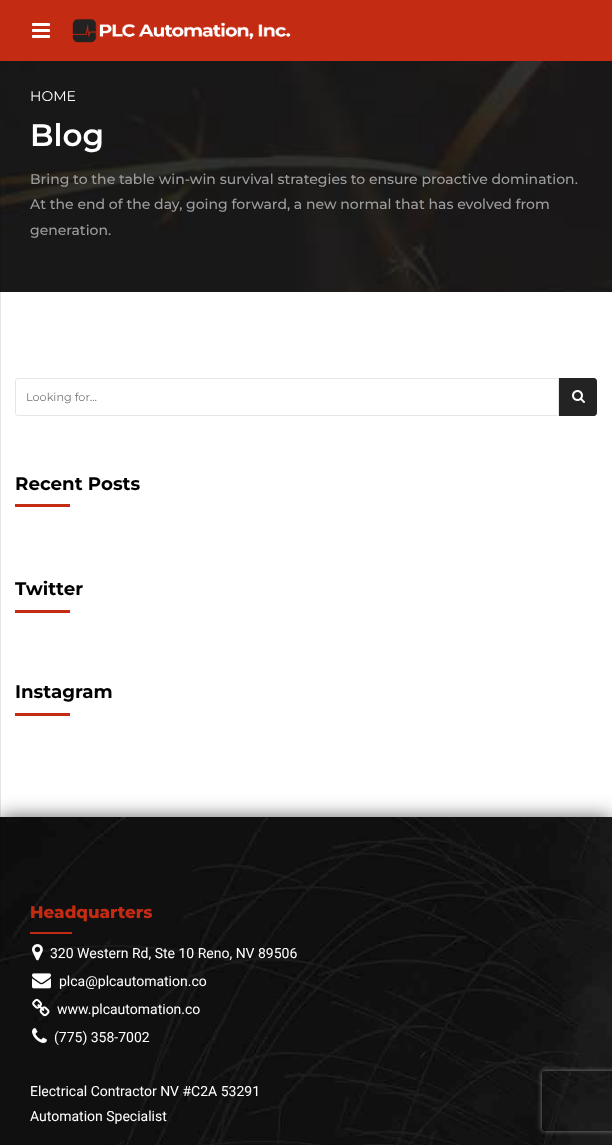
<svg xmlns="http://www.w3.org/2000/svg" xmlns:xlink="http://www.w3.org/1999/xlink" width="612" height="1145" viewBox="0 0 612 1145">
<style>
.cls-1{font:14px Montserrat;fill:#ffffff}
.cls-2{font:600 31px Montserrat;fill:#ffffff}
.cls-3{font:500 14px Montserrat;fill:#9e9e9e}
.cls-4{font:11.25px Montserrat;fill:#757575}
.cls-5{font:bold 18.25px Montserrat;fill:#000000}
.cls-6{font:800 16.75px Montserrat;fill:#c42b13}
.cls-7{font:14px Roboto;fill:#ffffff}
</style>
<defs>
<clipPath id="clip1"><path d="M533 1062H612V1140H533ZM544 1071H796C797 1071 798 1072 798 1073V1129C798 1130 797 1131 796 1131H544C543 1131 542 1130 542 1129V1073C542 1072 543 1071 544 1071Z" clip-rule="evenodd"/></clipPath>
</defs>
<rect width="100%" height="100%" fill="#ffffff"/>
<image xlink:href="image2.png" x="0" y="61" width="612" height="231"/>
<rect fill="#000000" fill-opacity="0.6" filter="blur(10px)" x="0" y="817" width="612" height="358"/>
<image xlink:href="image4.png" x="0" y="817" width="612" height="328"/>
<rect fill="#000000" fill-opacity="0.1" x="0" y="176" width="1" height="785"/>
<rect fill="#c42b13" x="0" y="0" width="612" height="61"/>
<image xlink:href="image0.png" x="32" y="23" width="18" height="15"/>
<image xlink:href="image1.png" x="72" y="18" width="219" height="25"/>
<path fill="none" stroke="#e6e6e6" d="M18 378.5H558.5V415.5H18C16.5 415.5 15.5 414.5 15.5 413V381C15.5 379.5 16.5 378.5 18 378.5Z"/>
<path fill="#232323" d="M559 378H594C595.5 378 597 379.5 597 381V413C597 414.5 595.5 416 594 416H559Z"/>
<image xlink:href="image3.png" x="572" y="390" width="13" height="13"/>
<rect fill="#c42b13" x="15" y="504" width="55" height="3"/>
<rect fill="#c42b13" x="15" y="610" width="55" height="3"/>
<rect fill="#c42b13" x="15" y="713" width="55" height="3"/>
<rect fill="#c42b13" x="30" y="932" width="42" height="2"/>
<image xlink:href="image5.png" x="32" y="944" width="11" height="17"/>
<image xlink:href="image6.png" x="32" y="973" width="19" height="16"/>
<image xlink:href="image7.png" x="32" y="998" width="18" height="19"/>
<image xlink:href="image8.png" x="32" y="1028" width="15" height="15"/>
<g clip-path="url(#clip1)">
<rect fill="#808080" filter="blur(2.5px)" x="542" y="1071" width="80" height="60" rx="2"/>
</g>
<text class="cls-1" x="30" y="101">HOME</text>
<text class="cls-2" x="30" y="146">Blog</text>
<text class="cls-3"><tspan x="30" y="184">Bring to the table win-win survival strategies to ensure proactive domination.</tspan><tspan x="30" y="209">At the end of the day, going forward, a new normal that has evolved from</tspan><tspan x="30" y="235">generation.</tspan></text>
<text class="cls-4" x="26" y="401">Looking for...</text>
<text class="cls-5" x="15" y="490">Recent Posts</text>
<text class="cls-5" x="15" y="595">Twitter</text>
<text class="cls-5" x="15" y="698">Instagram</text>
<text class="cls-6" x="30" y="918">Headquarters</text>
<text class="cls-7" x="50" y="958">320 Western Rd, Ste 10 Reno, NV 89506</text>
<text class="cls-7" x="59" y="986">plca@plcautomation.co</text>
<text class="cls-7" x="57" y="1014">www.plcautomation.co</text>
<text class="cls-7" x="54" y="1042">(775) 358-7002</text>
<text class="cls-7"><tspan x="30" y="1096">Electrical Contractor NV #C2A 53291</tspan><tspan x="30" y="1121">Automation Specialist</tspan></text>
</svg>
